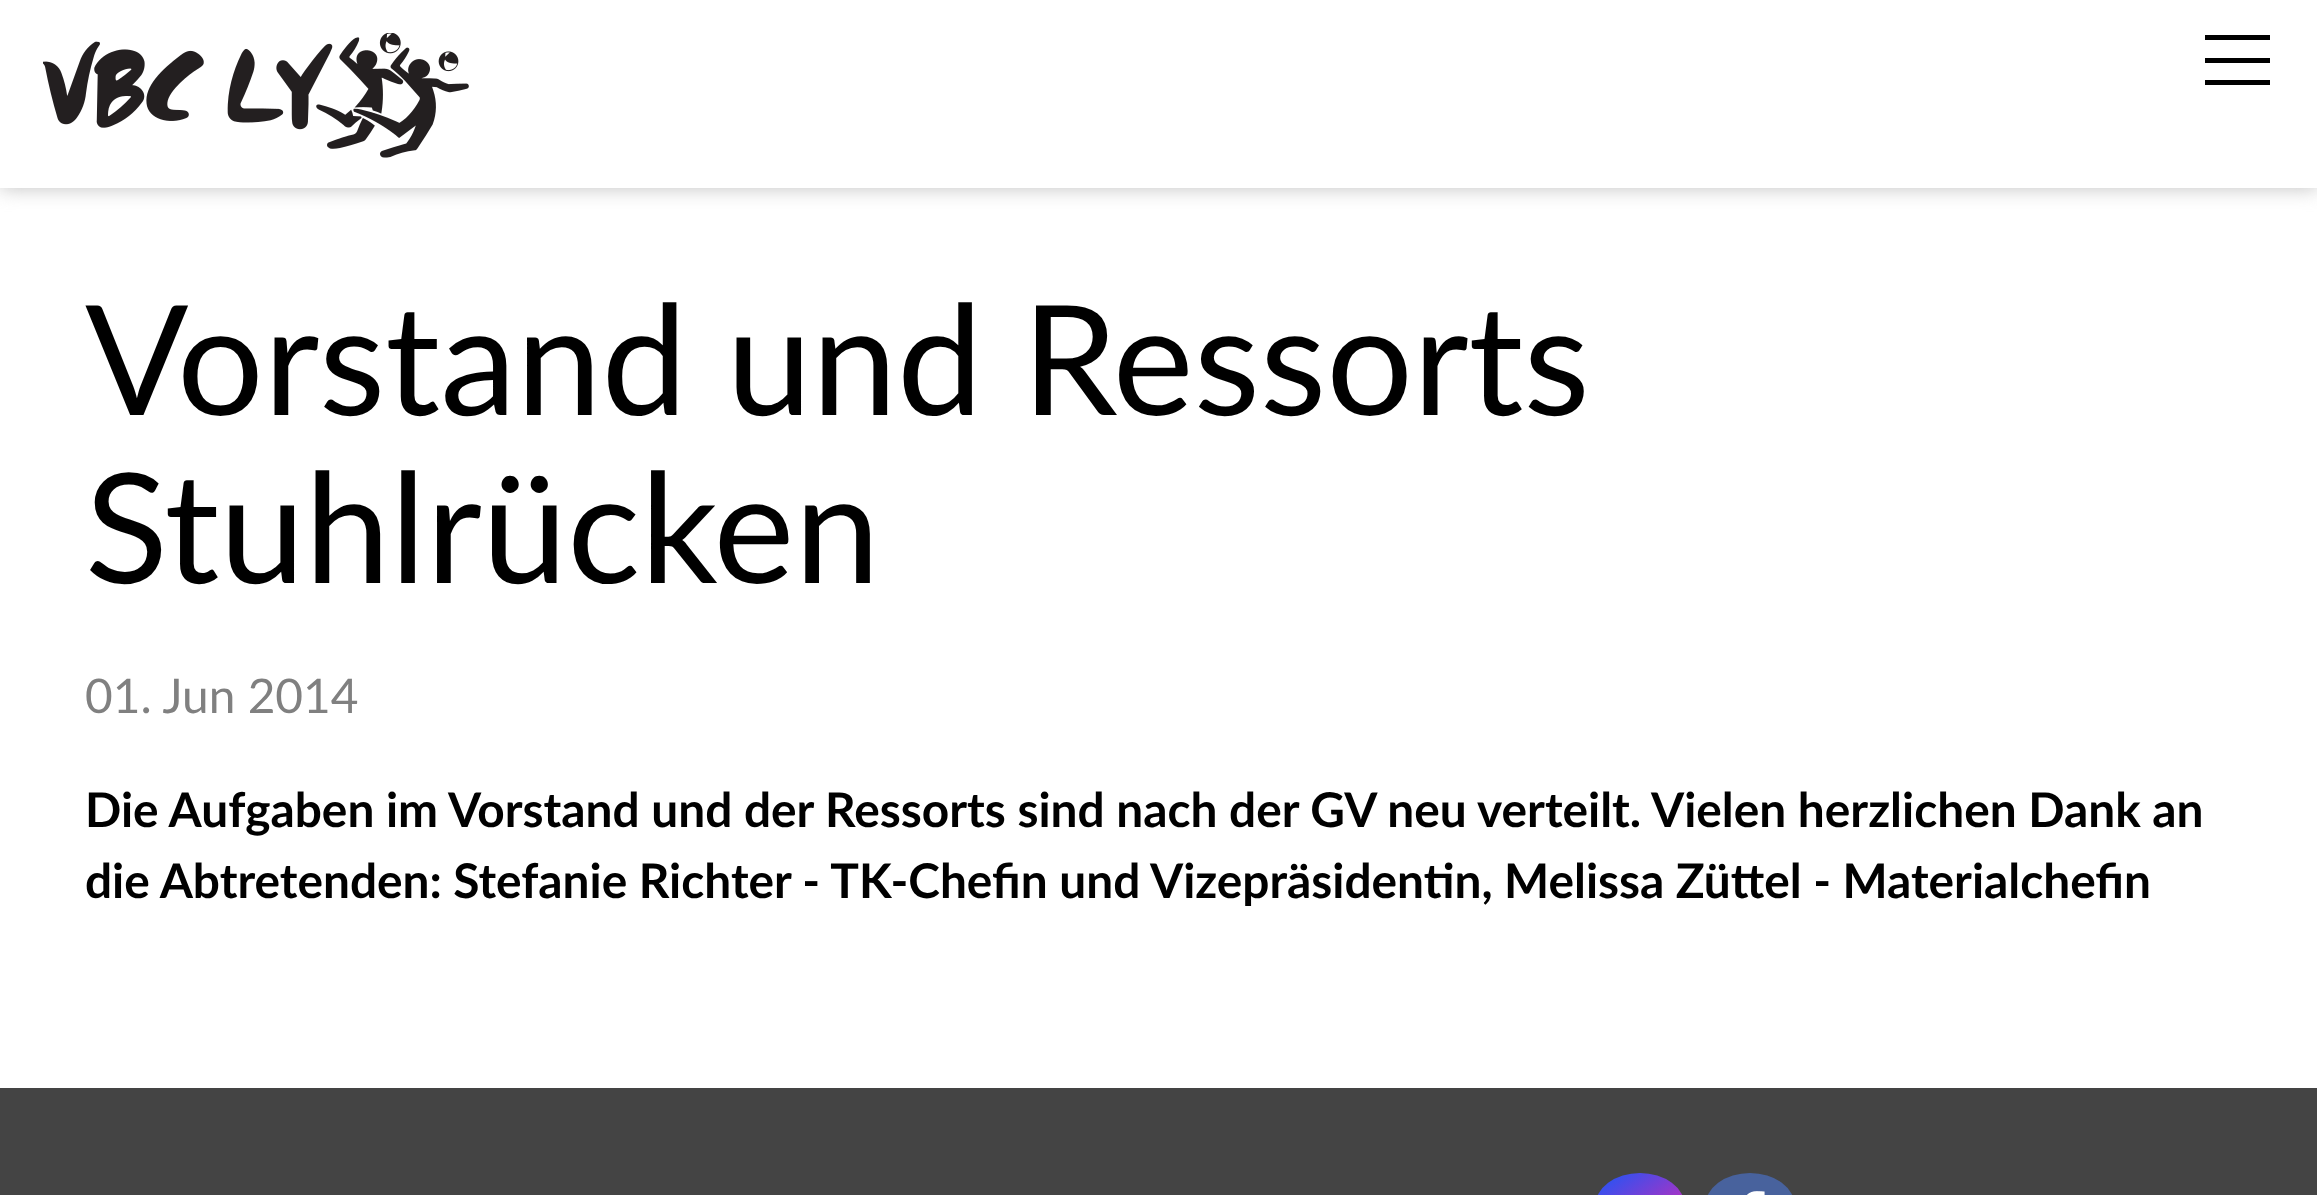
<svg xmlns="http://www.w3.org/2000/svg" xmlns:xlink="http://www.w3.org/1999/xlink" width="2317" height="1195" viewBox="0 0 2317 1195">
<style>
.cls-1{font:153px Lato;fill:#000000}
.cls-2{font:47.8px Lato;fill:#808080}
.cls-3{font:bold 47.8px Lato;fill:#000000}
</style>
<defs>
<clipPath id="clip1"><path d="M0 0H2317V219H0ZM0 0H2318V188H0Z" clip-rule="evenodd"/></clipPath>
<linearGradient id="g1" gradientUnits="userSpaceOnUse" x1="1604" y1="1166" x2="1676" y2="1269"><stop offset="0.1" stop-color="#3051f1"/><stop offset="0.7" stop-color="#c92bb7"/></linearGradient>
</defs>
<rect width="100%" height="100%" fill="#ffffff"/>
<g clip-path="url(#clip1)">
<rect fill="#c0c0c0" filter="blur(10px)" x="0" y="0" width="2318" height="188"/>
</g>
<image xlink:href="image0.png" x="43" y="33" width="426" height="125"/>
<rect fill="#000000" x="2205" y="35" width="65" height="5"/>
<rect fill="#000000" x="2205" y="58" width="65" height="5"/>
<rect fill="#000000" x="2205" y="80" width="65" height="5"/>
<rect fill="#444444" x="0" y="1088" width="2317" height="107"/>
<rect fill="url(#g1)" x="1595" y="1173" width="90" height="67" rx="45"/>
<rect fill="#48629d" x="1705" y="1173" width="90" height="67" rx="45"/>
<image xlink:href="image1.png" x="1747" y="1191" width="18" height="4"/>
<text class="cls-1"><tspan x="85" y="415">Vorstand und Ressorts</tspan><tspan x="85" y="583">Stuhlrücken</tspan></text>
<text class="cls-2" x="85" y="713">01. Jun 2014</text>
<text class="cls-3"><tspan x="85" y="827">Die Aufgaben im Vorstand und der Ressorts sind nach der GV neu verteilt. Vielen herzlichen Dank an</tspan><tspan x="85" y="898" word-spacing="-0.1">die Abtretenden: Stefanie Richter - TK-Chefin und Vizepräsidentin, Melissa Züttel - Materialchefin</tspan></text>
</svg>
